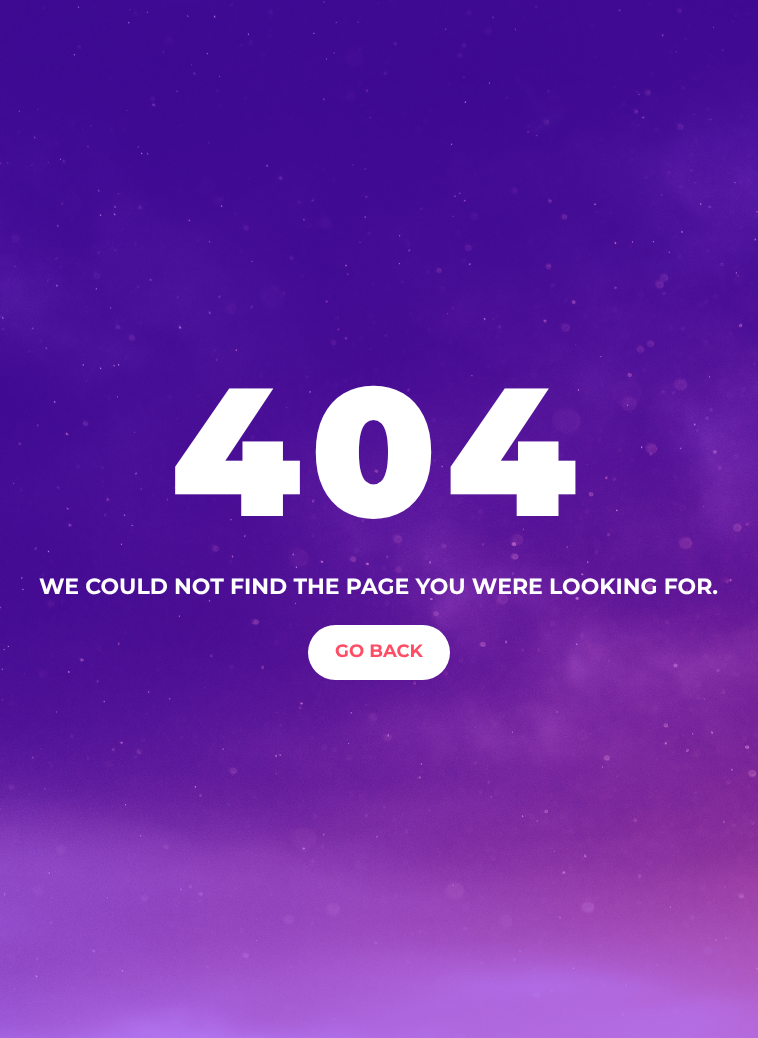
<svg xmlns="http://www.w3.org/2000/svg" xmlns:xlink="http://www.w3.org/1999/xlink" width="758" height="1038" viewBox="0 0 758 1038">
<style>
.cls-1{font:900 182px Montserrat;letter-spacing:10px;fill:#ffffff}
.cls-2{font:bold 22px Montserrat;fill:#ffffff}
.cls-3{font:bold 18px Montserrat;fill:#ff4d66}
</style>
<rect width="100%" height="100%" fill="#ffffff"/>
<image xlink:href="image0.png" x="0" y="0" width="758" height="1038"/>
<rect fill="#ffffff" x="308" y="625" width="142" height="55" rx="27.5"/>
<text class="cls-1" x="171" y="516">404</text>
<text class="cls-2" x="39" y="594">WE COULD NOT FIND THE PAGE YOU WERE LOOKING FOR.</text>
<text class="cls-3" x="335" y="657">GO BACK</text>
</svg>
